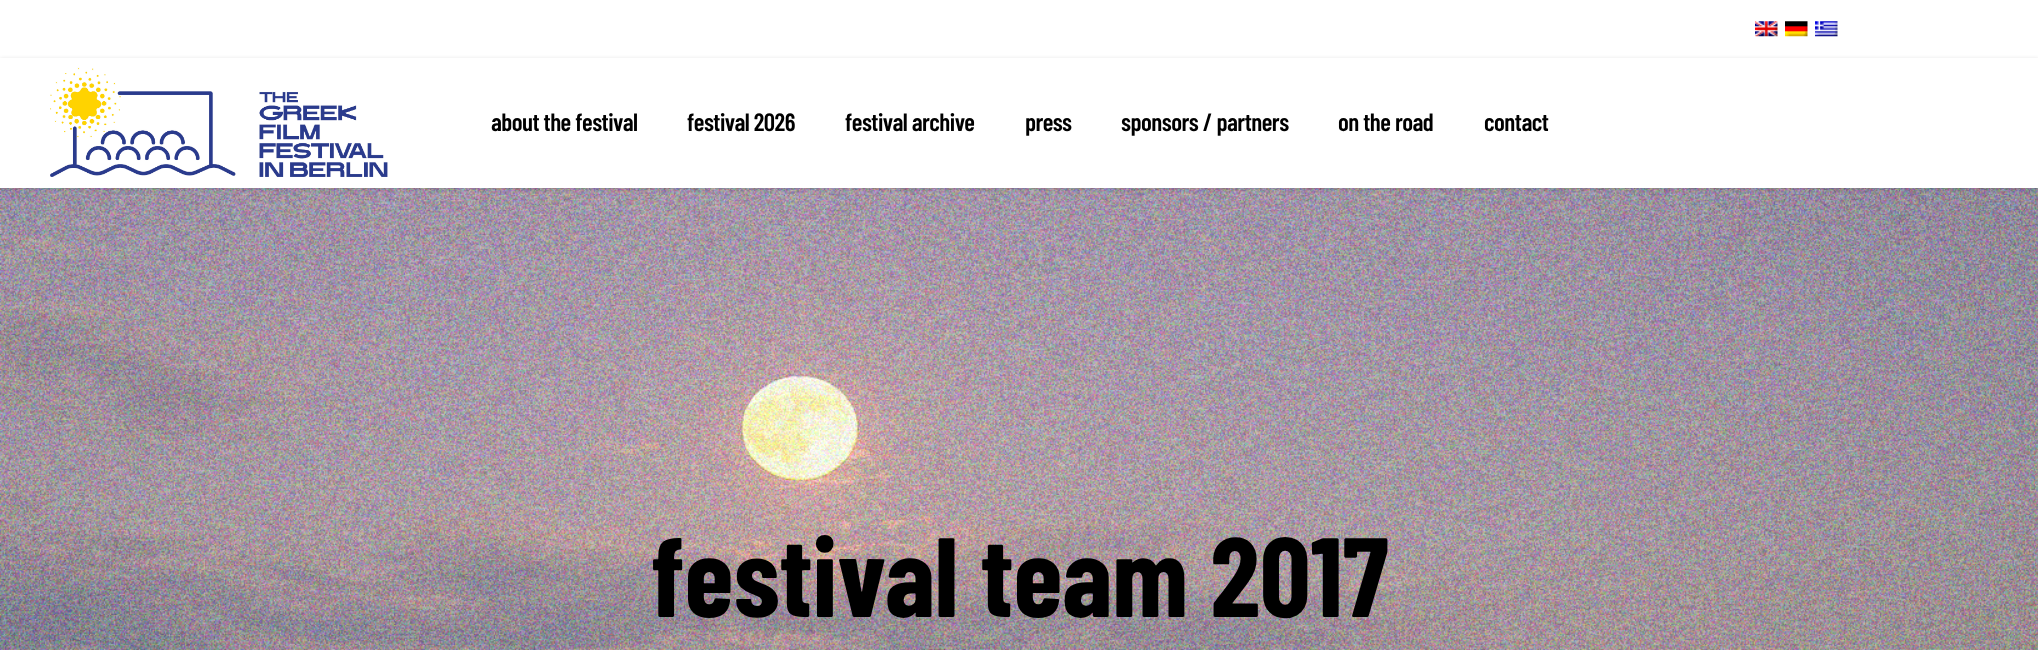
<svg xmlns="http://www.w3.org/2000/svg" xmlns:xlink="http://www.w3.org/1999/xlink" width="2038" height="650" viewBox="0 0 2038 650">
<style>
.cls-1{font:600 25px Barlow Condensed;letter-spacing:-0.5px;fill:#000000}
.cls-2{font:bold 112.5px Barlow Condensed;fill:#000000}
</style>
<rect width="100%" height="100%" fill="#ffffff"/>
<image xlink:href="image0.png" x="1755" y="21" width="23" height="16"/>
<image xlink:href="image1.png" x="1785" y="21" width="23" height="16"/>
<image xlink:href="image2.png" x="1815" y="21" width="23" height="16"/>
<image xlink:href="image4.png" x="0" y="188" width="2038" height="462"/>
<rect fill="#000000" fill-opacity="0.15" filter="blur(2px)" x="0" y="59" width="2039" height="130"/>
<rect fill="#ffffff" x="0" y="58" width="2038" height="130"/>
<image xlink:href="image3.png" x="50" y="67" width="338" height="110"/>
<text class="cls-1" x="491" y="131">about the festival</text>
<text class="cls-1" x="687" y="131">festival 2026</text>
<text class="cls-1" x="845" y="131">festival archive</text>
<text class="cls-1" x="1025" y="131">press</text>
<text class="cls-1" x="1121" y="131">sponsors / partners</text>
<text class="cls-1" x="1338" y="131">on the road</text>
<text class="cls-1" x="1484" y="131">contact</text>
<text class="cls-2" x="651" y="617">festival team 2017</text>
</svg>
